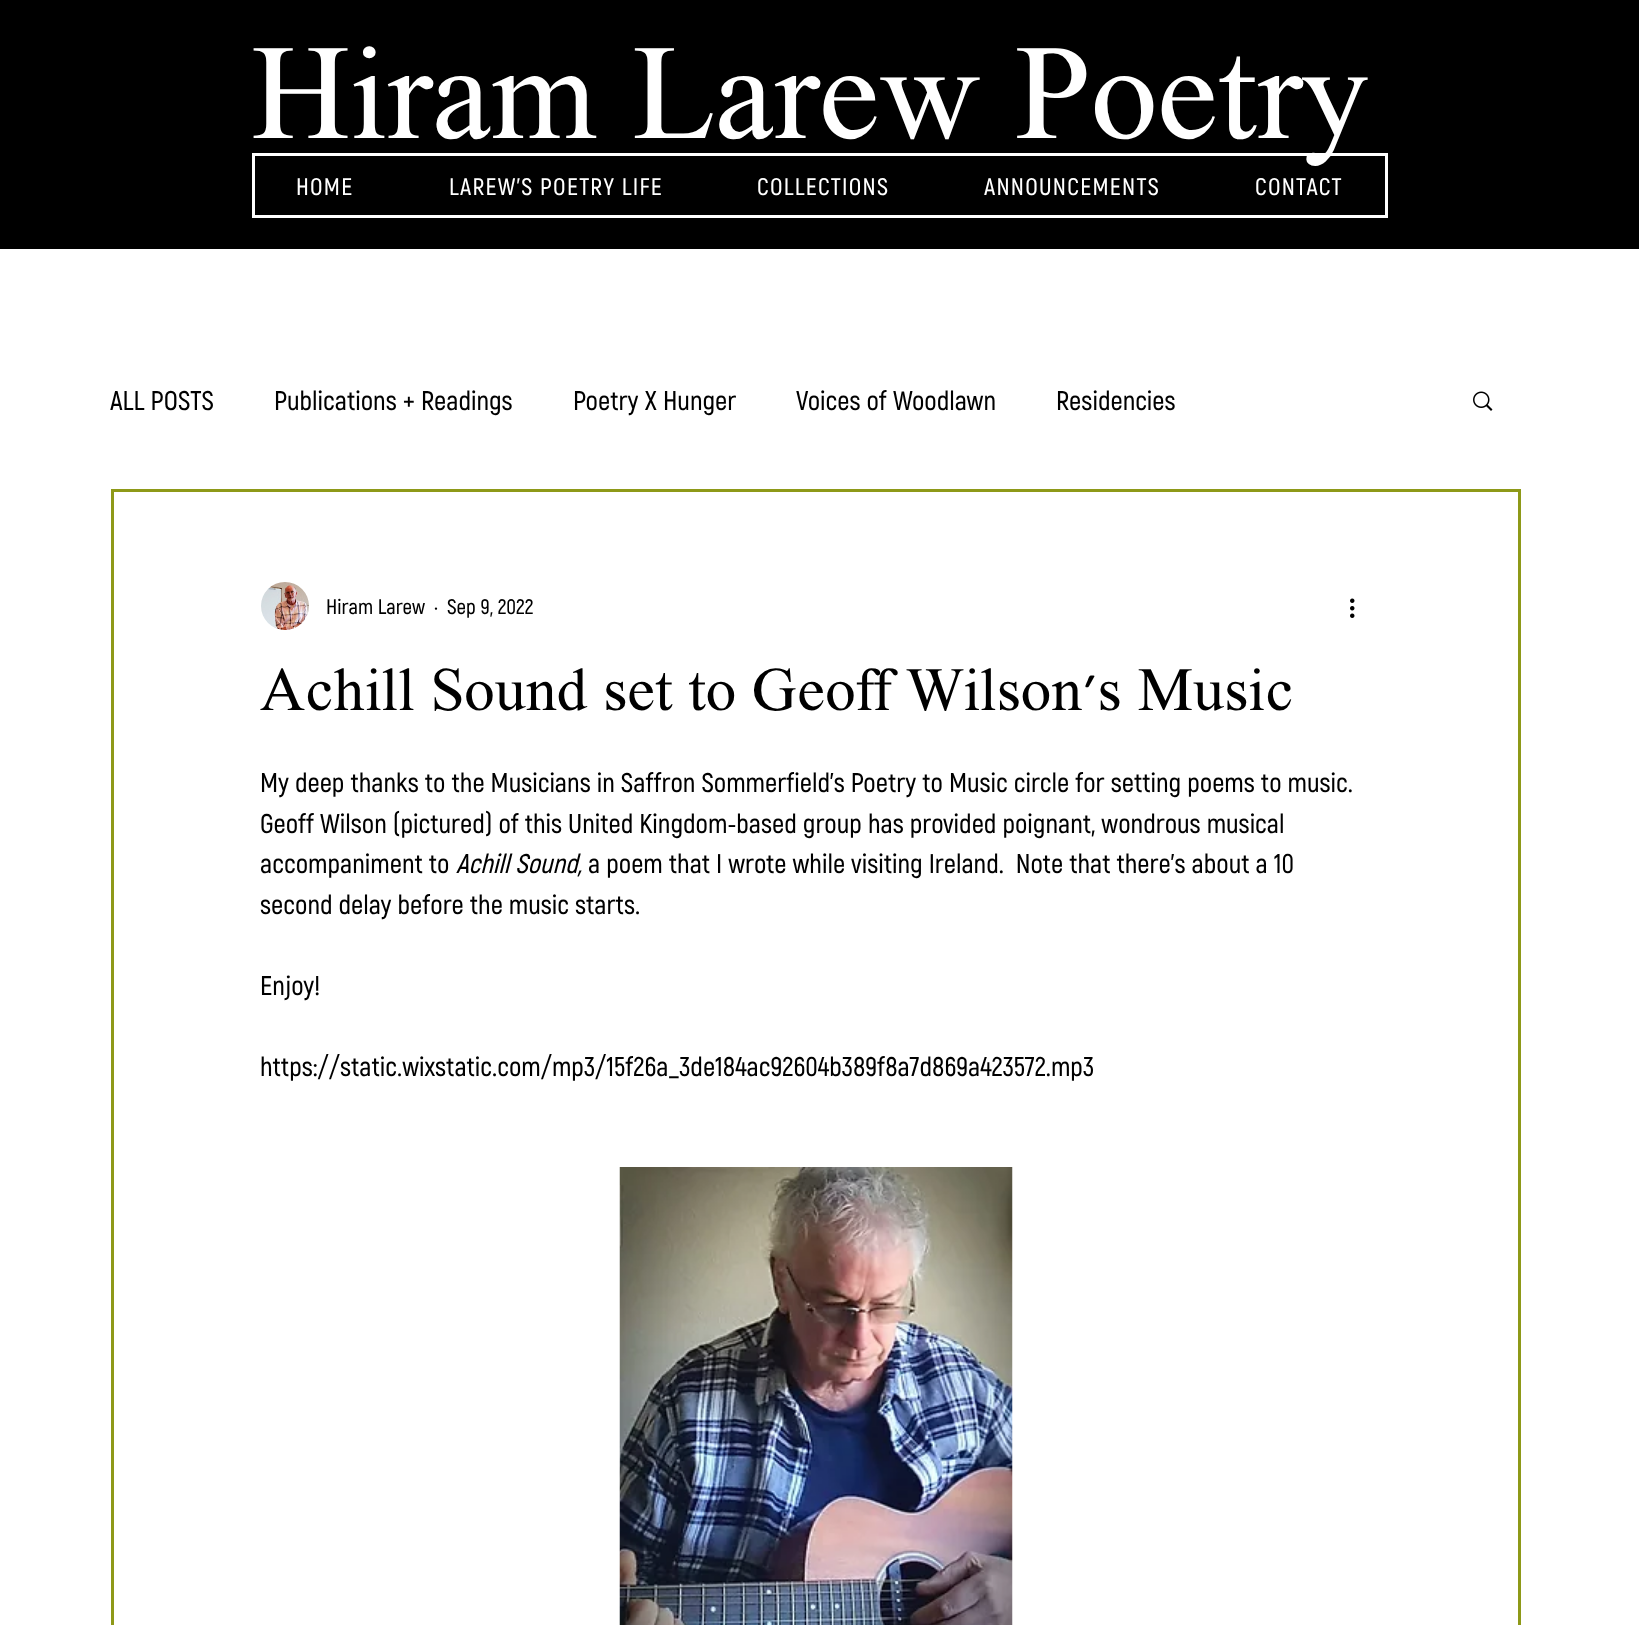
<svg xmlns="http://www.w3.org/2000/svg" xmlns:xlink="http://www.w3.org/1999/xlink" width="1639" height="1625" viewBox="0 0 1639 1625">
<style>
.cls-1{font:500 132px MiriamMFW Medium;fill:#ffffff}
.cls-2{font:600 24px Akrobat;letter-spacing:1.25px;fill:#ffffff}
.cls-3{font:600 27px Akrobat;fill:#000000}
.cls-4{font:600 21px Akrobat;fill:#000000}
.cls-5{font:500 60px MiriamMFW Medium;fill:#000000}
.cls-6{font:italic 600 27px Akrobat;fill:#000000}
</style>
<rect width="100%" height="100%" fill="#ffffff"/>
<rect fill="#000000" x="0" y="0" width="1639" height="249"/>
<rect fill="none" stroke="#ffffff" stroke-width="3" x="253.5" y="154.5" width="1133" height="62"/>
<image xlink:href="image0.png" x="1473" y="391" width="20" height="20"/>
<rect fill="none" stroke="#8e9918" stroke-width="3" x="112.5" y="490.5" width="1407" height="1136"/>
<image xlink:href="image1.png" x="261" y="582" width="48" height="48"/>
<image xlink:href="image2.png" x="1350" y="598" width="5" height="20"/>
<image xlink:href="image3.png" x="619" y="1167" width="394" height="458"/>
<text class="cls-1" x="251" y="138">Hiram Larew Poetry</text>
<text class="cls-2" x="296" y="195">HOME</text>
<text class="cls-2" x="449" y="195">LAREW'S POETRY LIFE</text>
<text class="cls-2" x="757" y="195">COLLECTIONS</text>
<text class="cls-2" x="984" y="195">ANNOUNCEMENTS</text>
<text class="cls-2" x="1255" y="195">CONTACT</text>
<text class="cls-3" x="110" y="410">ALL POSTS</text>
<text class="cls-3" x="274" y="410">Publications + Readings</text>
<text class="cls-3" x="573" y="410">Poetry X Hunger</text>
<text class="cls-3" x="796" y="410">Voices of Woodlawn</text>
<text class="cls-3" x="1056" y="410">Residencies</text>
<text class="cls-4" x="326" y="614">Hiram Larew</text>
<text class="cls-4" x="434" y="614">·</text>
<text class="cls-4" x="447" y="614">Sep 9, 2022</text>
<text class="cls-5" x="260" y="710">Achill Sound set to Geoff Wilson's Music</text>
<text class="cls-3"><tspan x="260" y="792">My deep thanks to the Musicians in Saffron Sommerfield's Poetry to Music circle for setting poems to music.</tspan><tspan x="260" y="833">Geoff Wilson (pictured) of this United Kingdom-based group has provided poignant, wondrous musical</tspan><tspan x="260" y="873">accompaniment to</tspan></text>
<text class="cls-6" x="456" y="873">Achill Sound,</text>
<text class="cls-3" xml:space="preserve" x="588" y="873">a poem that I wrote while visiting Ireland.  Note that there's about a 10</text>
<text class="cls-3" x="260" y="914">second delay before the music starts.</text>
<text class="cls-3" x="260" y="995">Enjoy!</text>
<text class="cls-3" x="260" y="1076">https://static.wixstatic.com/mp3/15f26a_3de184ac92604b389f8a7d869a423572.mp3</text>
</svg>
